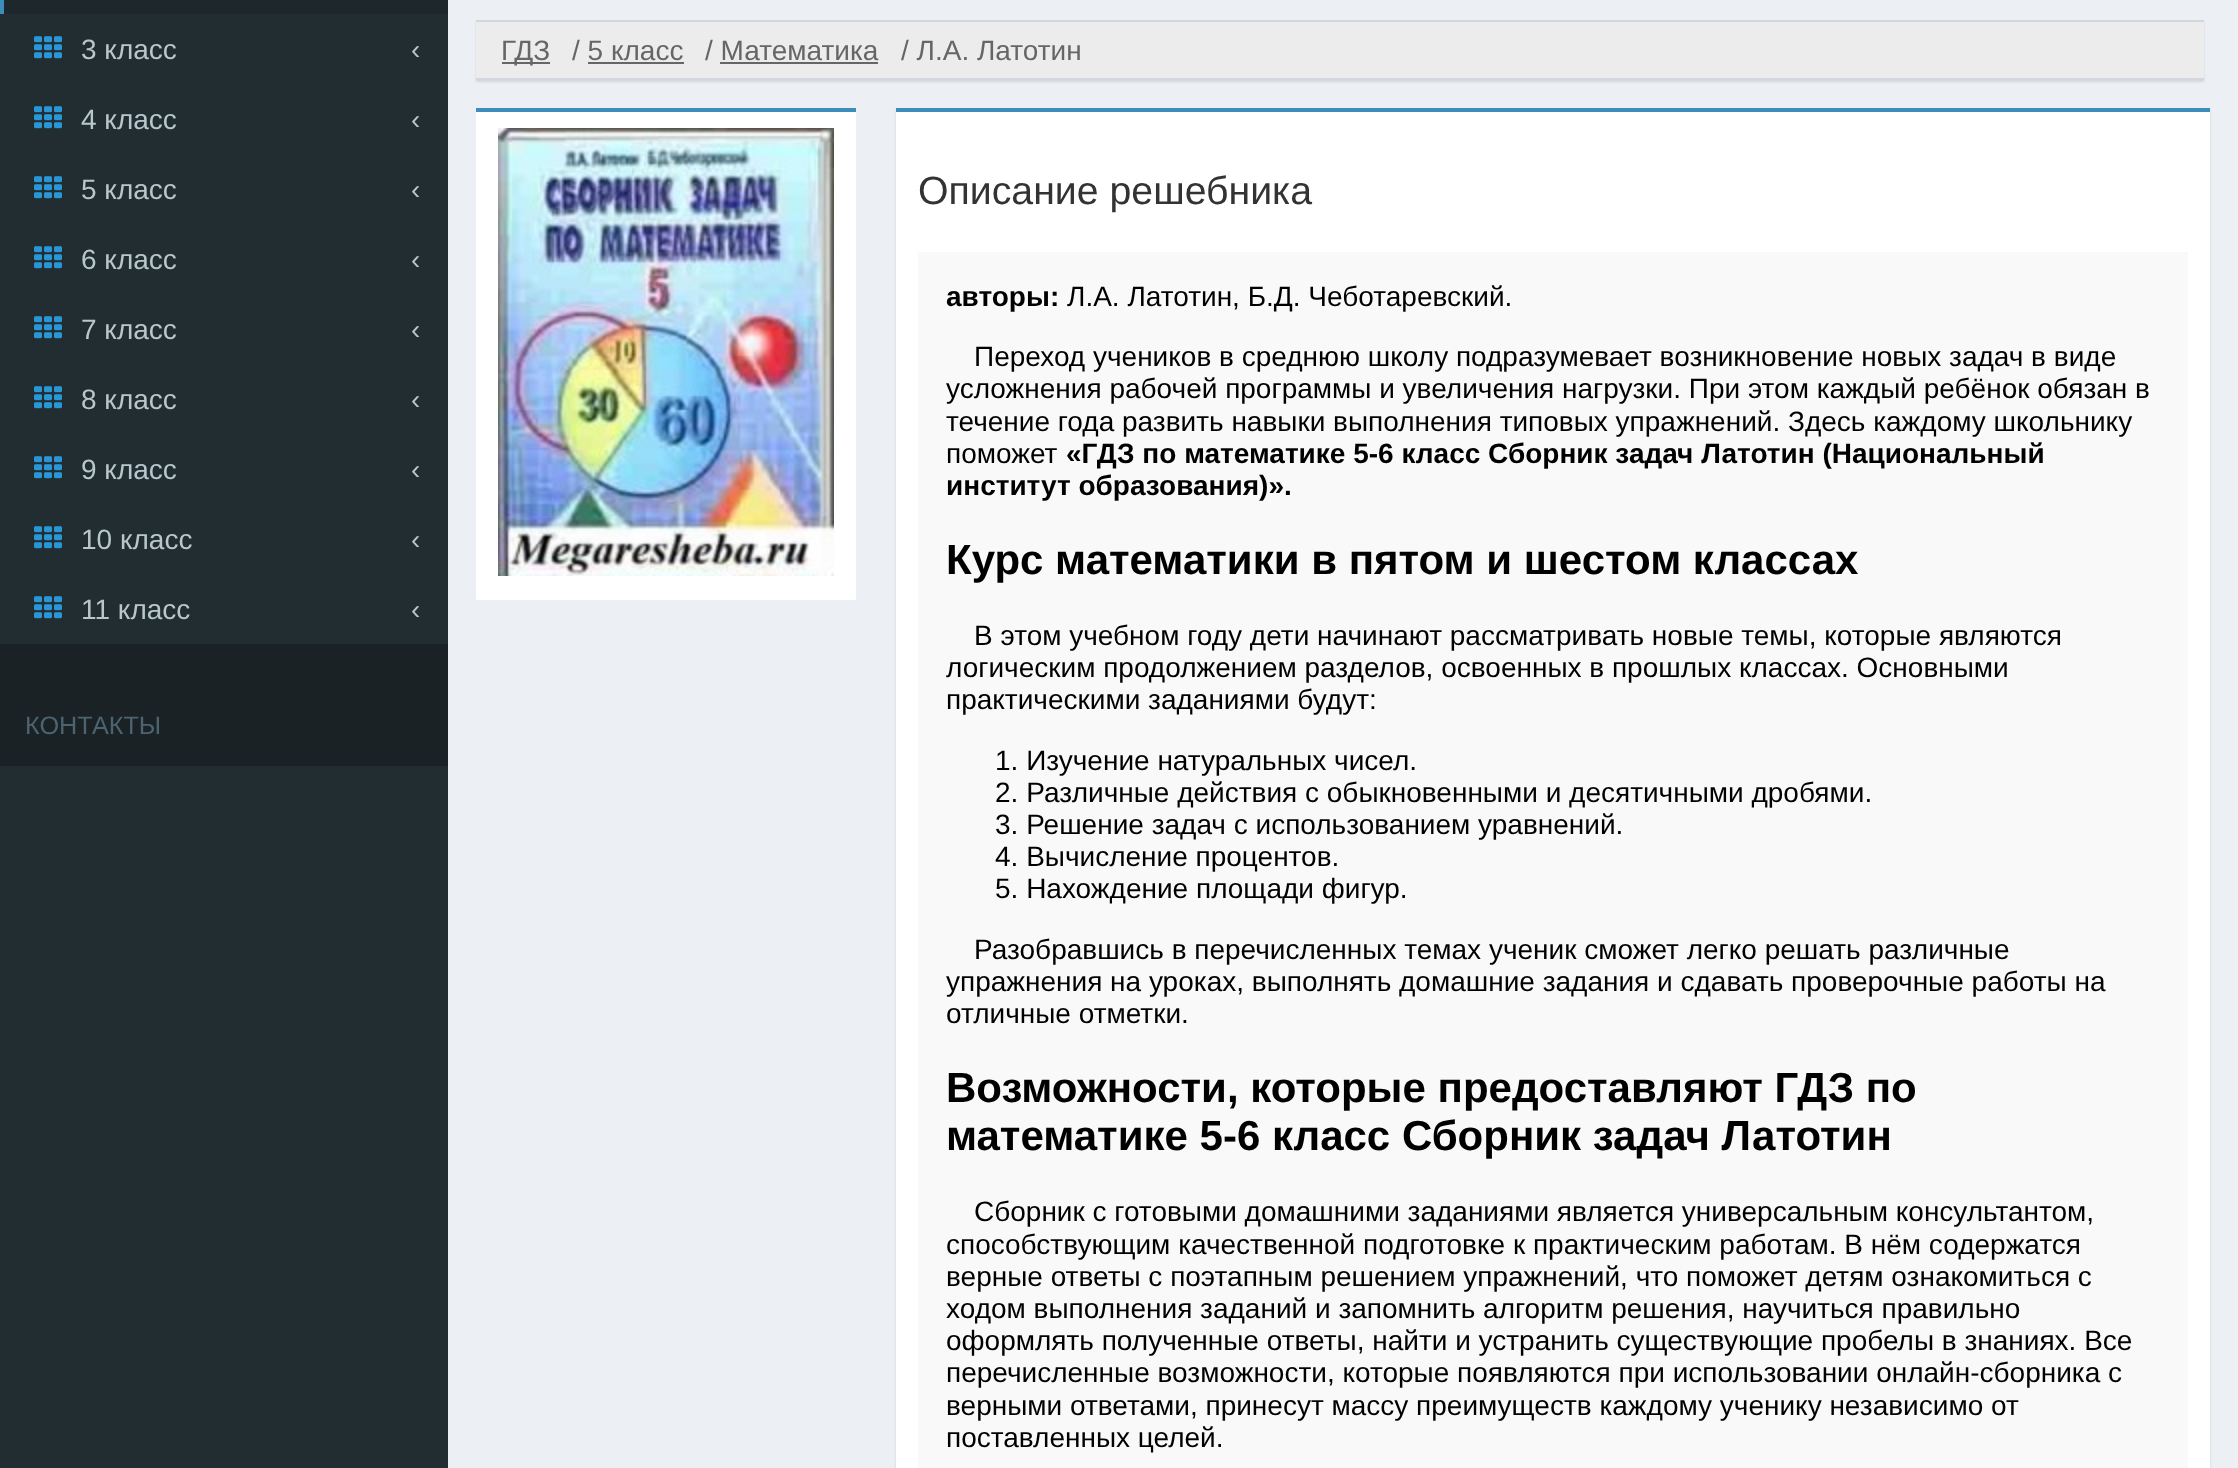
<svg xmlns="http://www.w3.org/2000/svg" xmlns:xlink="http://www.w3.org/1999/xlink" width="2238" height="1468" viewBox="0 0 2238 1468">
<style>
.cls-1{font:28px Liberation Sans;fill:#b8c7ce}
.cls-2{font:25.25px Liberation Sans;fill:#4b646f}
.cls-3{font:28px Liberation Sans;fill:#666666}
.cls-4{font:39.25px Liberation Sans;fill:#333333}
.cls-5{font:bold 28px Liberation Sans;fill:#000000}
.cls-6{font:28px Liberation Sans;fill:#000000}
.cls-7{font:bold 42px Liberation Sans;fill:#000000}
</style>
<rect width="100%" height="100%" fill="#ecf0f5"/>
<rect fill="#222d32" x="0" y="14" width="448" height="1454"/>
<rect fill="#1e282c" x="4" y="0" width="444" height="14"/>
<rect fill="#3c8dbc" x="0" y="0" width="4" height="14"/>
<image xlink:href="image0.png" x="34" y="36" width="28" height="23"/>
<image xlink:href="image0.png" x="34" y="106" width="28" height="23"/>
<image xlink:href="image0.png" x="34" y="176" width="28" height="23"/>
<image xlink:href="image0.png" x="34" y="246" width="28" height="23"/>
<image xlink:href="image0.png" x="34" y="316" width="28" height="23"/>
<image xlink:href="image0.png" x="34" y="386" width="28" height="23"/>
<image xlink:href="image0.png" x="34" y="456" width="28" height="23"/>
<image xlink:href="image0.png" x="34" y="526" width="28" height="23"/>
<image xlink:href="image0.png" x="34" y="596" width="28" height="23"/>
<rect fill="#1a2226" x="0" y="644" width="448" height="122"/>
<rect fill="#000000" fill-opacity="0.1" filter="blur(1px)" x="476" y="22" width="1728" height="60"/>
<rect fill="#ececec" x="476" y="22" width="1728" height="56"/>
<rect fill="#d2d6de" x="476" y="20" width="1728" height="2"/>
<rect fill="#d2d6de" x="476" y="78" width="1728" height="2"/>
<rect fill="#666666" x="502" y="62" width="48" height="2"/>
<rect fill="#666666" x="588" y="62" width="96" height="2"/>
<rect fill="#666666" x="720" y="62" width="158" height="2"/>
<rect fill="#ffffff" x="476" y="112" width="380" height="488"/>
<rect fill="#3c8dbc" x="476" y="108" width="380" height="4"/>
<image xlink:href="image1.png" x="498" y="128" width="336" height="448"/>
<rect fill="#000000" fill-opacity="0.1" filter="blur(1.5px)" x="896" y="110" width="1314" height="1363"/>
<rect fill="#ffffff" x="896" y="112" width="1314" height="1356"/>
<rect fill="#3c8dbc" x="896" y="108" width="1314" height="4"/>
<rect fill="#f9f9f9" x="918" y="252" width="1270" height="1216"/>
<text class="cls-1" x="81" y="59">3 класс</text>
<text class="cls-1" x="411" y="59">‹</text>
<text class="cls-1" x="81" y="129">4 класс</text>
<text class="cls-1" x="411" y="129">‹</text>
<text class="cls-1" x="81" y="199">5 класс</text>
<text class="cls-1" x="411" y="199">‹</text>
<text class="cls-1" x="81" y="269">6 класс</text>
<text class="cls-1" x="411" y="269">‹</text>
<text class="cls-1" x="81" y="339">7 класс</text>
<text class="cls-1" x="411" y="339">‹</text>
<text class="cls-1" x="81" y="409">8 класс</text>
<text class="cls-1" x="411" y="409">‹</text>
<text class="cls-1" x="81" y="479">9 класс</text>
<text class="cls-1" x="411" y="479">‹</text>
<text class="cls-1" x="81" y="549">10 класс</text>
<text class="cls-1" x="411" y="549">‹</text>
<text class="cls-1" x="81" y="619">11 класс</text>
<text class="cls-1" x="411" y="619">‹</text>
<text class="cls-2" x="25" y="734">КОНТАКТЫ</text>
<text class="cls-3" x="501" y="60">ГДЗ</text>
<text class="cls-3" x="572" y="60">/ 5 класс</text>
<text class="cls-3" x="705" y="60">/ Математика</text>
<text class="cls-3" x="901" y="60">/ Л.А. Латотин</text>
<text class="cls-4" x="918" y="204">Описание решебника</text>
<text class="cls-5" x="946" y="306">авторы:</text>
<text class="cls-6" x="1067" y="306">Л.А. Латотин, Б.Д. Чеботаревский.</text>
<text class="cls-6" x="974" y="366">Переход учеников в среднюю школу подразумевает возникновение новых задач в виде</text>
<text class="cls-6"><tspan x="946" y="398">усложнения рабочей программы и увеличения нагрузки. При этом каждый ребёнок обязан в</tspan><tspan x="946" y="431">течение года развить навыки выполнения типовых упражнений. Здесь каждому школьнику</tspan><tspan x="946" y="463">поможет</tspan></text>
<text class="cls-5" x="1066" y="463">«ГДЗ по математике 5-6 класс Сборник задач Латотин (Национальный</text>
<text class="cls-5" x="946" y="495">институт образования)».</text>
<text class="cls-7" x="946" y="574">Курс математики в пятом и шестом классах</text>
<text class="cls-6" x="974" y="645">В этом учебном году дети начинают рассматривать новые темы, которые являются</text>
<text class="cls-6"><tspan x="946" y="677">логическим продолжением разделов, освоенных в прошлых классах. Основными</tspan><tspan x="946" y="709">практическими заданиями будут:</tspan></text>
<text class="cls-6"><tspan x="995" y="770">1. Изучение натуральных чисел.</tspan><tspan x="995" y="802">2. Различные действия с обыкновенными и десятичными дробями.</tspan><tspan x="995" y="834">3. Решение задач с использованием уравнений.</tspan><tspan x="995" y="866">4. Вычисление процентов.</tspan><tspan x="995" y="898">5. Нахождение площади фигур.</tspan></text>
<text class="cls-6" x="974" y="959">Разобравшись в перечисленных темах ученик сможет легко решать различные</text>
<text class="cls-6"><tspan x="946" y="991">упражнения на уроках, выполнять домашние задания и сдавать проверочные работы на</tspan><tspan x="946" y="1023">отличные отметки.</tspan></text>
<text class="cls-7"><tspan x="946" y="1102">Возможности, которые предоставляют ГДЗ по</tspan><tspan x="946" y="1150">математике 5-6 класс Сборник задач Латотин</tspan></text>
<text class="cls-6" x="974" y="1221">Сборник с готовыми домашними заданиями является универсальным консультантом,</text>
<text class="cls-6"><tspan x="946" y="1254">способствующим качественной подготовке к практическим работам. В нём содержатся</tspan><tspan x="946" y="1286">верные ответы с поэтапным решением упражнений, что поможет детям ознакомиться с</tspan><tspan x="946" y="1318">ходом выполнения заданий и запомнить алгоритм решения, научиться правильно</tspan><tspan x="946" y="1350">оформлять полученные ответы, найти и устранить существующие пробелы в знаниях. Все</tspan><tspan x="946" y="1382">перечисленные возможности, которые появляются при использовании онлайн-сборника с</tspan><tspan x="946" y="1415">верными ответами, принесут массу преимуществ каждому ученику независимо от</tspan><tspan x="946" y="1447">поставленных целей.</tspan></text>
</svg>
